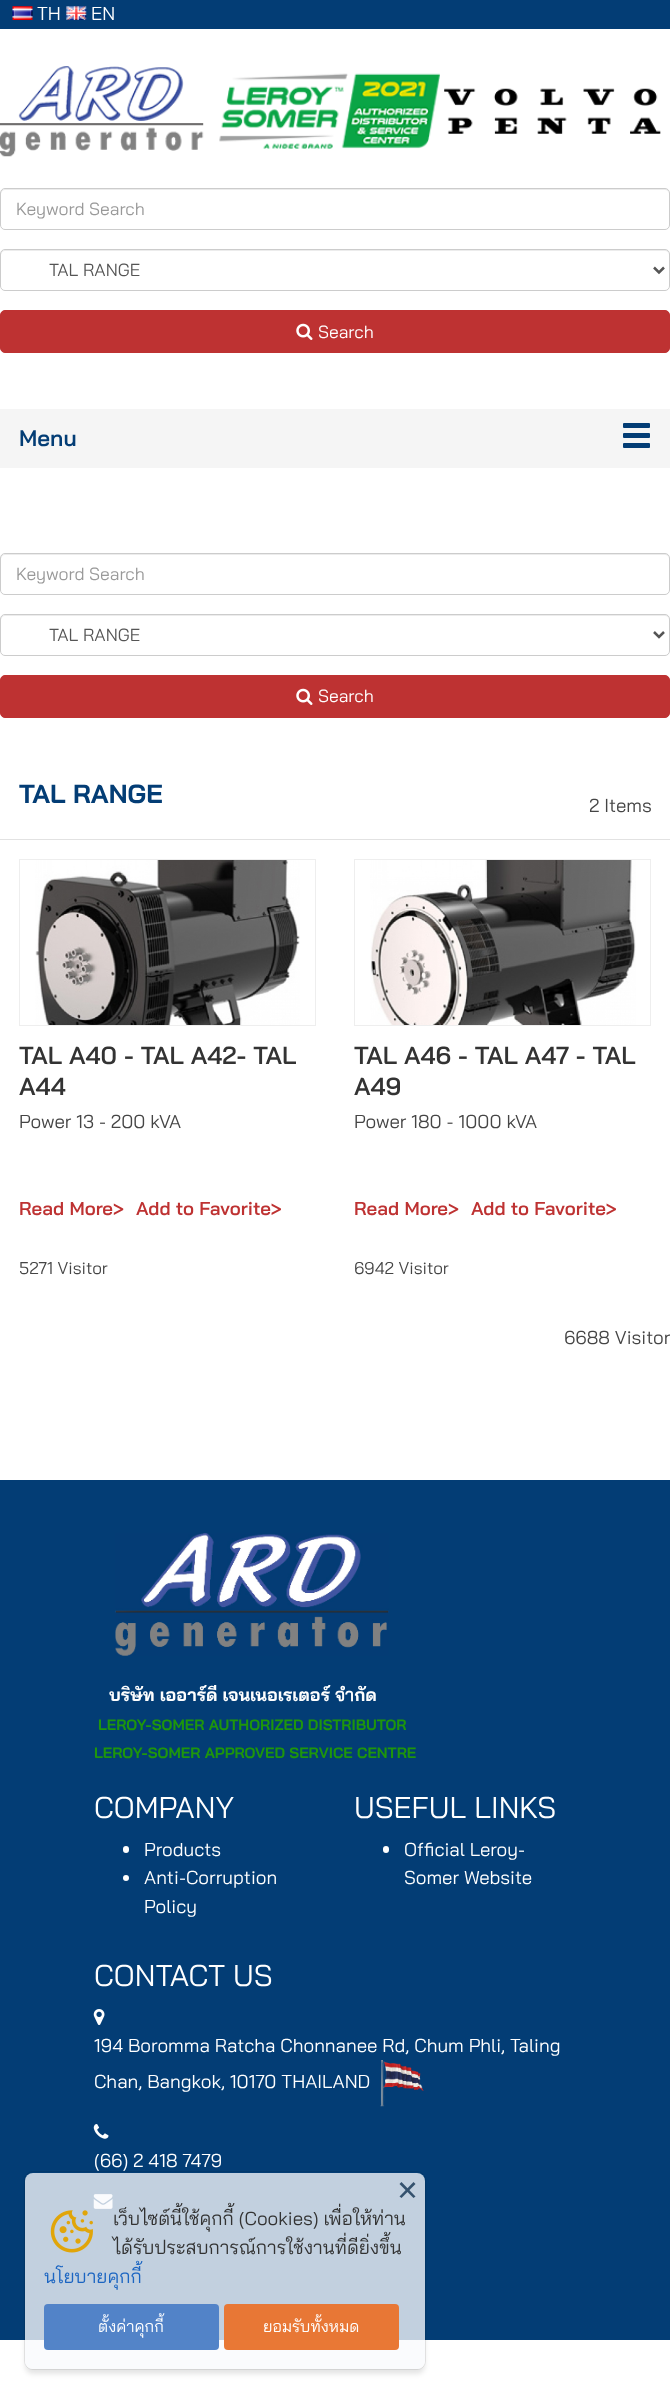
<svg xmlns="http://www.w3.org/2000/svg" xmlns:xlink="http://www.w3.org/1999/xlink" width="670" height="2393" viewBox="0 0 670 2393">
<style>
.cls-1{font:18.75px Bai Jamjuree;fill:#ffffff}
.cls-2{font:17.5px Bai Jamjuree;fill:#999999}
.cls-3{font:17.5px Bai Jamjuree;fill:#555555}
.cls-4{font:17.5px Bai Jamjuree;fill:#ffffff}
.cls-5{font:600 22.5px Bai Jamjuree;fill:#033d75}
.cls-6{font:bold 26.25px Bai Jamjuree;fill:#033d75}
.cls-7{font:18.75px Bai Jamjuree;fill:#454545}
.cls-8{font:600 24.75px Bai Jamjuree;fill:#333333}
.cls-9{font:600 18.75px Bai Jamjuree;fill:#be3232}
.cls-10{font:17px Bai Jamjuree;fill:#454545}
.cls-11{font:bold 17.5px Bai Jamjuree;fill:#ffffff}
.cls-12{font:bold 15px Bai Jamjuree;fill:#1e960c}
.cls-13{font:30px Bai Jamjuree;fill:#ffffff}
.cls-14{font:18.75px Bai Jamjuree;fill:#333333}
.cls-15{font:18.75px Bai Jamjuree;fill:#1b65c2}
.cls-16{font:16px Bai Jamjuree;fill:#ffffff}
</style>
<defs>
<clipPath id="clip1"><path d="M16 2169H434V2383H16ZM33 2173H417C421.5 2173 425 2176.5 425 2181V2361C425 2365.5 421.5 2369 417 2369H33C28.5 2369 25 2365.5 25 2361V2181C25 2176.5 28.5 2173 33 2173Z" clip-rule="evenodd"/></clipPath>
</defs>
<rect width="100%" height="100%" fill="#ffffff"/>
<rect fill="#033d75" x="0" y="0" width="670" height="29"/>
<image xlink:href="image0.png" x="12" y="6" width="21" height="14"/>
<image xlink:href="image1.png" x="66" y="6" width="21" height="14"/>
<image xlink:href="image2.png" x="0" y="66" width="661" height="91"/>
<path fill="#ececec" d="M5 190H665C667 190 669 192 669 194C669 191 668 189 665 189H5L2 190L1 191V194C1 192 3 190 5 190Z"/>
<rect fill="none" stroke="#cccccc" x="0.5" y="188.5" width="669" height="41" rx="4.5"/>
<path fill="#ececec" d="M5 251H665C667 251 669 253 669 255C669 252 668 250 665 250H5L2 251L1 252V255C1 253 3 251 5 251Z"/>
<rect fill="none" stroke="#cccccc" x="0.5" y="249.5" width="669" height="41" rx="4.5"/>
<path fill="none" stroke="#555555" stroke-width="2.5" d="M654 267.5L659 272.5L664 267.5"/>
<rect fill="#be3232" stroke="#be3232" x="0.5" y="310.5" width="669" height="42" rx="4.5"/>
<image xlink:href="image3.png" x="296" y="323" width="17" height="17"/>
<rect fill="#f5f5f5" x="0" y="409" width="670" height="59"/>
<rect fill="#033d75" x="623" y="423" width="27" height="5" rx="1"/>
<rect fill="#033d75" x="623" y="433" width="27" height="5" rx="1"/>
<rect fill="#033d75" x="623" y="443" width="27" height="5" rx="1"/>
<path fill="#ececec" d="M5 555H665C667 555 669 557 669 559C669 556 668 554 665 554H5L2 555L1 556V559C1 557 3 555 5 555Z"/>
<rect fill="none" stroke="#cccccc" x="0.5" y="553.5" width="669" height="41" rx="4.5"/>
<path fill="#ececec" d="M5 616H665C667 616 669 618 669 620C669 617 668 615 665 615H5L2 616L1 617V620C1 618 3 616 5 616Z"/>
<rect fill="none" stroke="#cccccc" x="0.5" y="614.5" width="669" height="41" rx="4.5"/>
<path fill="none" stroke="#555555" stroke-width="2.5" d="M654 632L659 637L664 632"/>
<rect fill="#be3232" stroke="#be3232" x="0.5" y="675.5" width="669" height="42" rx="4.5"/>
<image xlink:href="image3.png" x="296" y="688" width="17" height="17"/>
<rect fill="#e2e2e2" x="0" y="839" width="670" height="1"/>
<rect fill="none" stroke="#eeeeee" x="19.5" y="859.5" width="296" height="166"/>
<image xlink:href="image4.png" x="35" y="860" width="265" height="165"/>
<rect fill="none" stroke="#eeeeee" x="354.5" y="859.5" width="296" height="166"/>
<image xlink:href="image5.png" x="370" y="860" width="266" height="165"/>
<rect fill="#033d75" x="0" y="1480" width="670" height="860"/>
<image xlink:href="image6.png" x="115" y="1533" width="274" height="123"/>
<rect fill="#ffffff" x="123" y="1846" width="6" height="7" rx="3"/>
<circle fill="#ffffff" cx="126" cy="1878" r="3"/>
<rect fill="#ffffff" x="383" y="1846" width="6" height="7" rx="3"/>
<image xlink:href="image7.png" x="93" y="2009" width="12" height="16"/>
<image xlink:href="image8.png" x="380" y="2060" width="44" height="47"/>
<image xlink:href="image9.png" x="93" y="2124" width="16" height="15"/>
<image xlink:href="image10.png" x="93" y="2194" width="20" height="15"/>
<rect fill="none" stroke="#000000" stroke-opacity="0.08" x="24.5" y="2171.5" width="401" height="198" rx="8.5"/>
<g clip-path="url(#clip1)">
<rect fill="#000000" fill-opacity="0.1" filter="blur(2.5px)" x="25" y="2178" width="400" height="196" rx="8"/>
</g>
<rect fill="#f9fafc" fill-opacity="0.78" x="25" y="2173" width="400" height="196" rx="8"/>
<path fill="#34516e" d="M399.5 2196.5L413.5 2182L415.5 2184L401.5 2198Z"/>
<path fill="#34516e" d="M401.5 2182L415.5 2196.5L413.5 2198L399.5 2184Z"/>
<image xlink:href="image11.png" x="50" y="2210" width="43" height="43"/>
<rect fill="#5082c7" fill-opacity="0.98" x="44" y="2304" width="175" height="46" rx="4"/>
<rect fill="#e97531" fill-opacity="0.98" x="224" y="2304" width="175" height="46" rx="4"/>
<text class="cls-1" x="37" y="20">TH</text>
<text class="cls-1" x="91" y="20">EN</text>
<text class="cls-2" x="16" y="215">Keyword Search</text>
<text class="cls-3" x="49" y="276">TAL RANGE</text>
<text class="cls-4" x="318" y="338">Search</text>
<text class="cls-5" x="19" y="446">Menu</text>
<text class="cls-2" x="16" y="580">Keyword Search</text>
<text class="cls-3" x="49" y="641">TAL RANGE</text>
<text class="cls-4" x="318" y="702">Search</text>
<text class="cls-6" x="19" y="803">TAL RANGE</text>
<text class="cls-7" x="589" y="812">2 Items</text>
<text class="cls-8"><tspan x="19" y="1064">TAL A40 - TAL A42- TAL</tspan><tspan x="19" y="1095">A44</tspan></text>
<text class="cls-7" x="19" y="1128">Power 13 - 200 kVA</text>
<text class="cls-9" x="19" y="1215">Read More&gt;</text>
<text class="cls-9" x="136" y="1215">Add to Favorite&gt;</text>
<text class="cls-10" x="19" y="1274">5271 Visitor</text>
<text class="cls-8"><tspan x="354" y="1064">TAL A46 - TAL A47 - TAL</tspan><tspan x="354" y="1095">A49</tspan></text>
<text class="cls-7" x="354" y="1128">Power 180 - 1000 kVA</text>
<text class="cls-9" x="354" y="1215">Read More&gt;</text>
<text class="cls-9" x="471" y="1215">Add to Favorite&gt;</text>
<text class="cls-10" x="354" y="1274">6942 Visitor</text>
<text class="cls-7" x="564" y="1344">6688 Visitor</text>
<text class="cls-11" x="109" y="1701">บริษัท เออาร์ดี เจนเนอเรเตอร์ จำกัด</text>
<text class="cls-12" x="98" y="1730">LEROY-SOMER AUTHORIZED DISTRIBUTOR</text>
<text class="cls-12" x="94" y="1758">LEROY-SOMER APPROVED SERVICE CENTRE</text>
<text class="cls-13" x="94" y="1818">COMPANY</text>
<text class="cls-1"><tspan x="144" y="1856">Products</tspan><tspan x="144" y="1884">Anti-Corruption</tspan><tspan x="144" y="1913">Policy</tspan></text>
<text class="cls-13" x="354" y="1818">USEFUL LINKS</text>
<text class="cls-1"><tspan x="404" y="1856">Official Leroy-</tspan><tspan x="404" y="1884">Somer Website</tspan></text>
<text class="cls-13" x="94" y="1986">CONTACT US</text>
<text class="cls-1"><tspan x="94" y="2052">194 Boromma Ratcha Chonnanee Rd, Chum Phli, Taling</tspan><tspan x="94" y="2088">Chan, Bangkok, 10170 THAILAND</tspan></text>
<text class="cls-1" x="94" y="2167">(66) 2 418 7479</text>
<text class="cls-14"><tspan x="113" y="2225">เว็บไซต์นี้ใช้คุกกี้ (Cookies) เพื่อให้ท่าน</tspan><tspan x="113" y="2254">ได้รับประสบการณ์การใช้งานที่ดียิ่งขึ้น</tspan></text>
<text class="cls-15" x="44" y="2283">นโยบายคุกกี้</text>
<text class="cls-16" x="98" y="2332">ตั้งค่าคุกกี้</text>
<text class="cls-16" x="263" y="2332">ยอมรับทั้งหมด</text>
</svg>
